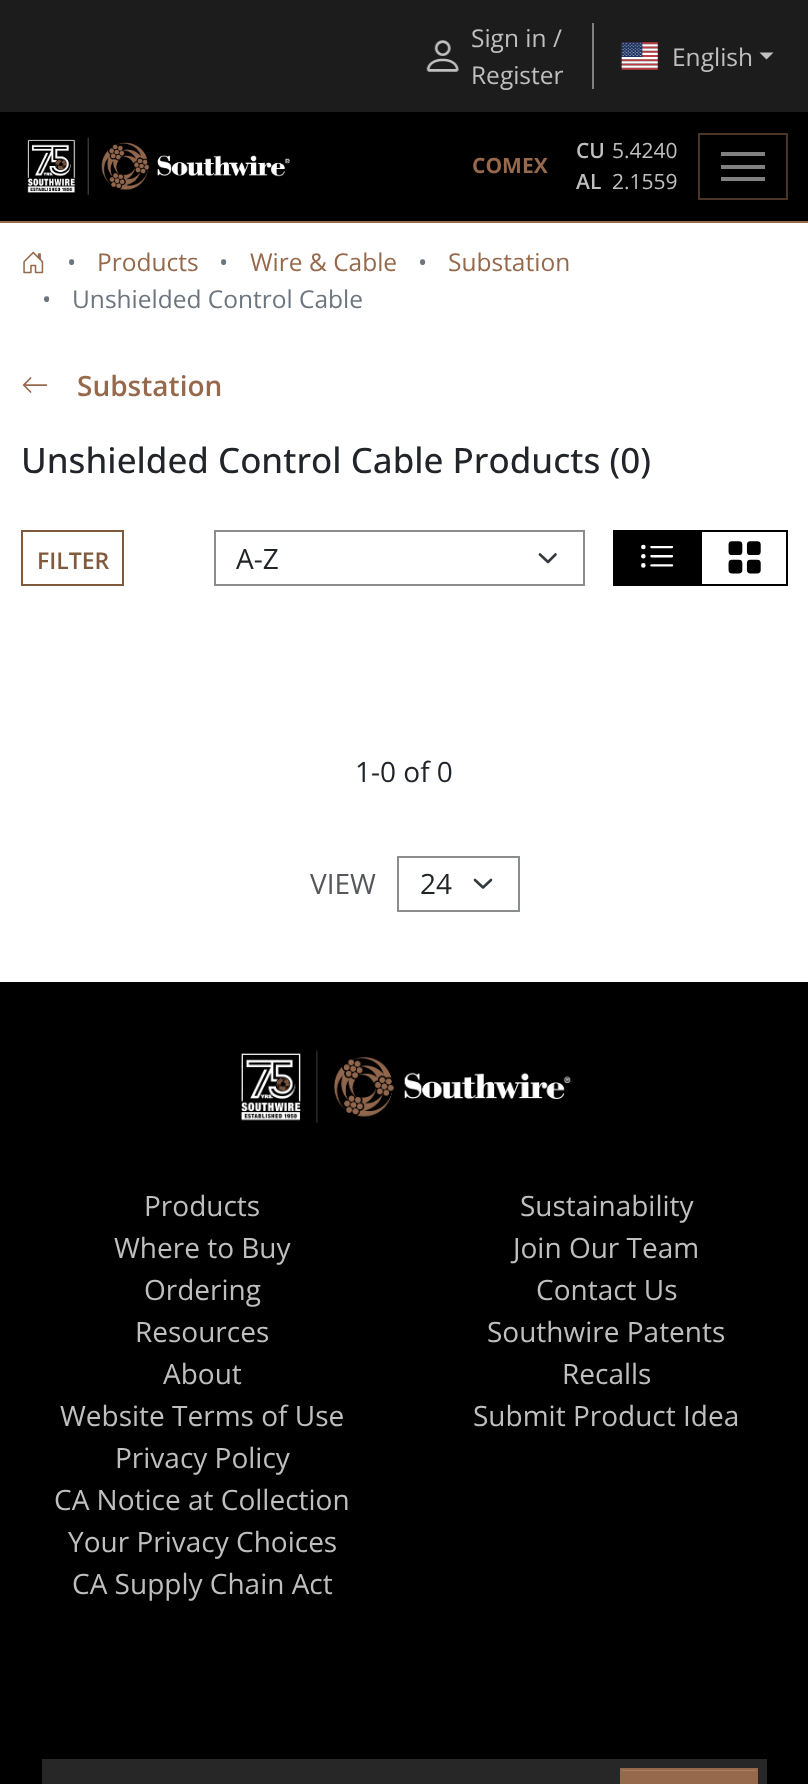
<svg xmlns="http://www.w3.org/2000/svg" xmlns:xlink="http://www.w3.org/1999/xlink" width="808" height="1784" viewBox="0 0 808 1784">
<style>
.cls-1{font:24.5px Open Sans;fill:#bfbfbf}
.cls-2{font:bold 21px Open Sans;fill:#96694c}
.cls-3{font:600 21px Open Sans;fill:#bfbfbf}
.cls-4{font:21px Open Sans;fill:#bfbfbf}
.cls-5{font:24.5px Open Sans;fill:#6c757d}
.cls-6{font:24.5px Open Sans;fill:#96694c}
.cls-7{font:600 28px Open Sans;fill:#96694c}
.cls-8{font:500 35px Open Sans;fill:#212529}
.cls-9{font:600 23px Open Sans;fill:#815a3e}
.cls-10{font:28px Open Sans;fill:#212529}
.cls-11{font:28px Open Sans;fill:#55575b}
.cls-12{font:28px Open Sans;fill:#bfbfbf}
</style>
<rect width="100%" height="100%" fill="#ffffff"/>
<rect fill="#000000" x="0" y="112" width="808" height="109"/>
<rect fill="#1c1c1c" x="0" y="0" width="808" height="112"/>
<image xlink:href="image0.png" x="426" y="40" width="33" height="32"/>
<rect fill="#808080" x="592" y="23" width="2" height="66"/>
<image xlink:href="image1.png" x="620" y="42" width="39" height="28"/>
<path fill="#c0c0c0" d="M759.5 52.5H773.5L766.5 59.5Z"/>
<rect fill="#96694c" x="0" y="221" width="808" height="2"/>
<image xlink:href="image2.png" x="27" y="137" width="263" height="59"/>
<rect fill="none" stroke="#4b3526" stroke-width="2" x="699" y="134" width="88" height="65"/>
<rect fill="#808080" x="721" y="152" width="44" height="4"/>
<rect fill="#808080" x="721" y="165" width="44" height="4"/>
<rect fill="#808080" x="721" y="177" width="44" height="4"/>
<image xlink:href="image3.png" x="23" y="251" width="21" height="23"/>
<image xlink:href="image4.png" x="22" y="377" width="26" height="16"/>
<rect fill="none" stroke="#815a3e" stroke-width="2" x="22" y="531" width="101" height="54"/>
<path fill="none" stroke="#343a40" stroke-width="2.6" stroke-linecap="round" stroke-linejoin="round" d="M540 554.5L548 562L555.5 554.5"/>
<rect fill="none" stroke="#8a8c8d" stroke-width="2" x="215" y="531" width="369" height="54"/>
<rect fill="#000000" x="613" y="530" width="87" height="56"/>
<image xlink:href="image5.png" x="641" y="544" width="33" height="24"/>
<rect fill="none" stroke="#000000" stroke-width="2" x="701" y="531" width="86" height="54"/>
<image xlink:href="image6.png" x="728" y="541" width="33" height="33"/>
<path fill="none" stroke="#343a40" stroke-width="2.6" stroke-linecap="round" stroke-linejoin="round" d="M475 880L483 887.5L491 880"/>
<rect fill="none" stroke="#8a8c8d" stroke-width="2" x="398" y="857" width="121" height="54"/>
<rect fill="#000000" x="0" y="982" width="808" height="802"/>
<image xlink:href="image7.png" x="241" y="1050" width="330" height="73"/>
<rect fill="#272728" x="42" y="1759" width="725" height="25"/>
<rect fill="#96694c" x="622" y="1771" width="134" height="13"/>
<rect fill="#a68067" x="621" y="1770" width="135" height="1"/>
<rect fill="none" stroke="#96694c" stroke-width="2" x="621" y="1769" width="136" height="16"/>
<text class="cls-1"><tspan x="471" y="47">Sign in /</tspan><tspan x="471" y="84">Register</tspan></text>
<text class="cls-1" x="672" y="66">English</text>
<text class="cls-2" x="472" y="173">COMEX</text>
<text class="cls-3" x="576" y="158">CU</text>
<text class="cls-4" x="612" y="158">5.4240</text>
<text class="cls-3" x="576" y="189">AL</text>
<text class="cls-4" x="612" y="189">2.1559</text>
<text class="cls-5" x="67" y="271">•</text>
<text class="cls-6" x="97" y="271">Products</text>
<text class="cls-5" x="219" y="271">•</text>
<text class="cls-6" x="250" y="271">Wire &amp; Cable</text>
<text class="cls-5" x="418" y="271">•</text>
<text class="cls-6" x="448" y="271">Substation</text>
<text class="cls-5" x="42" y="308">•</text>
<text class="cls-5" x="72" y="308">Unshielded Control Cable</text>
<text class="cls-7" x="77" y="396">Substation</text>
<text class="cls-8" x="21" y="473">Unshielded Control Cable Products (0)</text>
<text class="cls-9" x="37" y="569">FILTER</text>
<text class="cls-10" x="236" y="569">A-Z</text>
<text class="cls-10" x="355" y="782">1-0 of 0</text>
<text class="cls-11" x="310" y="894">VIEW</text>
<text class="cls-10" x="420" y="894">24</text>
<text class="cls-12" x="144" y="1216">Products</text>
<text class="cls-12" x="114" y="1258">Where to Buy</text>
<text class="cls-12" x="144" y="1300">Ordering</text>
<text class="cls-12" x="135" y="1342">Resources</text>
<text class="cls-12" x="163" y="1384">About</text>
<text class="cls-12" x="520" y="1216">Sustainability</text>
<text class="cls-12" x="513" y="1258">Join Our Team</text>
<text class="cls-12" x="536" y="1300">Contact Us</text>
<text class="cls-12" x="487" y="1342">Southwire Patents</text>
<text class="cls-12" x="562" y="1384">Recalls</text>
<text class="cls-12" x="60" y="1426">Website Terms of Use</text>
<text class="cls-12" x="115" y="1468">Privacy Policy</text>
<text class="cls-12" x="54" y="1510">CA Notice at Collection</text>
<text class="cls-12" x="68" y="1552">Your Privacy Choices</text>
<text class="cls-12" x="72" y="1594">CA Supply Chain Act</text>
<text class="cls-12" x="473" y="1426">Submit Product Idea</text>
</svg>
